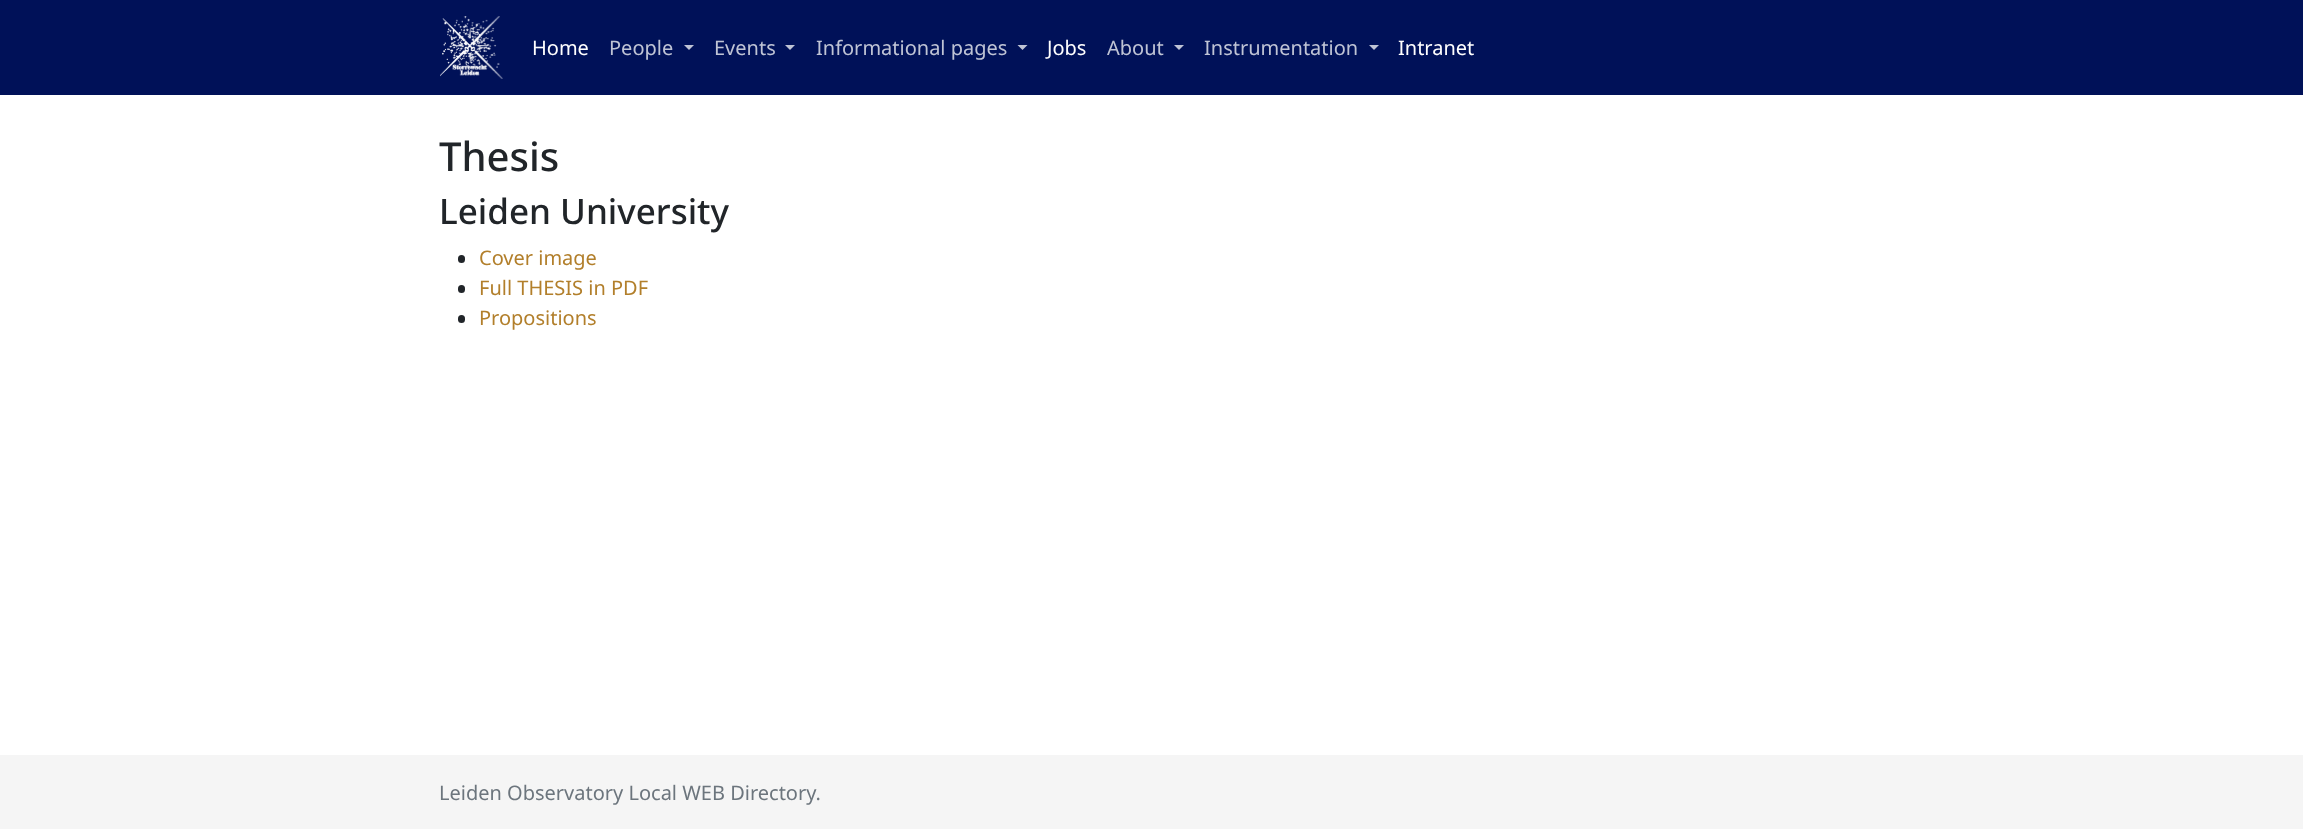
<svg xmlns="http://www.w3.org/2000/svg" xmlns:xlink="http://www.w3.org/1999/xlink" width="2303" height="829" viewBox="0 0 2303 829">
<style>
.cls-1{font:20px Noto Sans;fill:#ffffff}
.cls-2{font:20px Noto Sans;fill:#bfc4d5}
.cls-3{font:500 40px Noto Sans;fill:#212529}
.cls-4{font:500 35px Noto Sans;fill:#212529}
.cls-5{font:20px Noto Sans;fill:#b27f2b}
.cls-6{font:20px Noto Sans;fill:#6c757d}
</style>
<rect width="100%" height="100%" fill="#ffffff"/>
<rect fill="#001158" x="0" y="0" width="2303" height="95"/>
<image xlink:href="image0.png" x="440" y="16" width="63" height="63"/>
<path fill="#bfc4d5" d="M684 45H694L689 50Z"/>
<path fill="#bfc4d5" d="M785 45H795L790 50Z"/>
<path fill="#bfc4d5" d="M1017.5 45H1027.5L1022.5 50Z"/>
<path fill="#bfc4d5" d="M1174 45H1184L1179 50Z"/>
<path fill="#bfc4d5" d="M1369 45H1379L1374 50Z"/>
<rect fill="#212529" x="458" y="255" width="7" height="8" rx="3.5"/>
<rect fill="#212529" x="458" y="285" width="7" height="8" rx="3.5"/>
<rect fill="#212529" x="458" y="315" width="7" height="8" rx="3.5"/>
<rect fill="#f5f5f5" x="0" y="755" width="2303" height="74"/>
<text class="cls-1" x="532" y="55">Home</text>
<text class="cls-2" x="609" y="55">People</text>
<text class="cls-2" x="714" y="55">Events</text>
<text class="cls-2" x="816" y="55">Informational pages</text>
<text class="cls-1" x="1047" y="55">Jobs</text>
<text class="cls-2" x="1107" y="55">About</text>
<text class="cls-2" x="1204" y="55">Instrumentation</text>
<text class="cls-1" x="1398" y="55">Intranet</text>
<text class="cls-3" x="439" y="171">Thesis</text>
<text class="cls-4" x="439" y="224">Leiden University</text>
<text class="cls-5"><tspan x="479" y="265">Cover image</tspan><tspan x="479" y="295">Full THESIS in PDF</tspan><tspan x="479" y="325">Propositions</tspan></text>
<text class="cls-6" x="439" y="800">Leiden Observatory Local WEB Directory.</text>
</svg>
